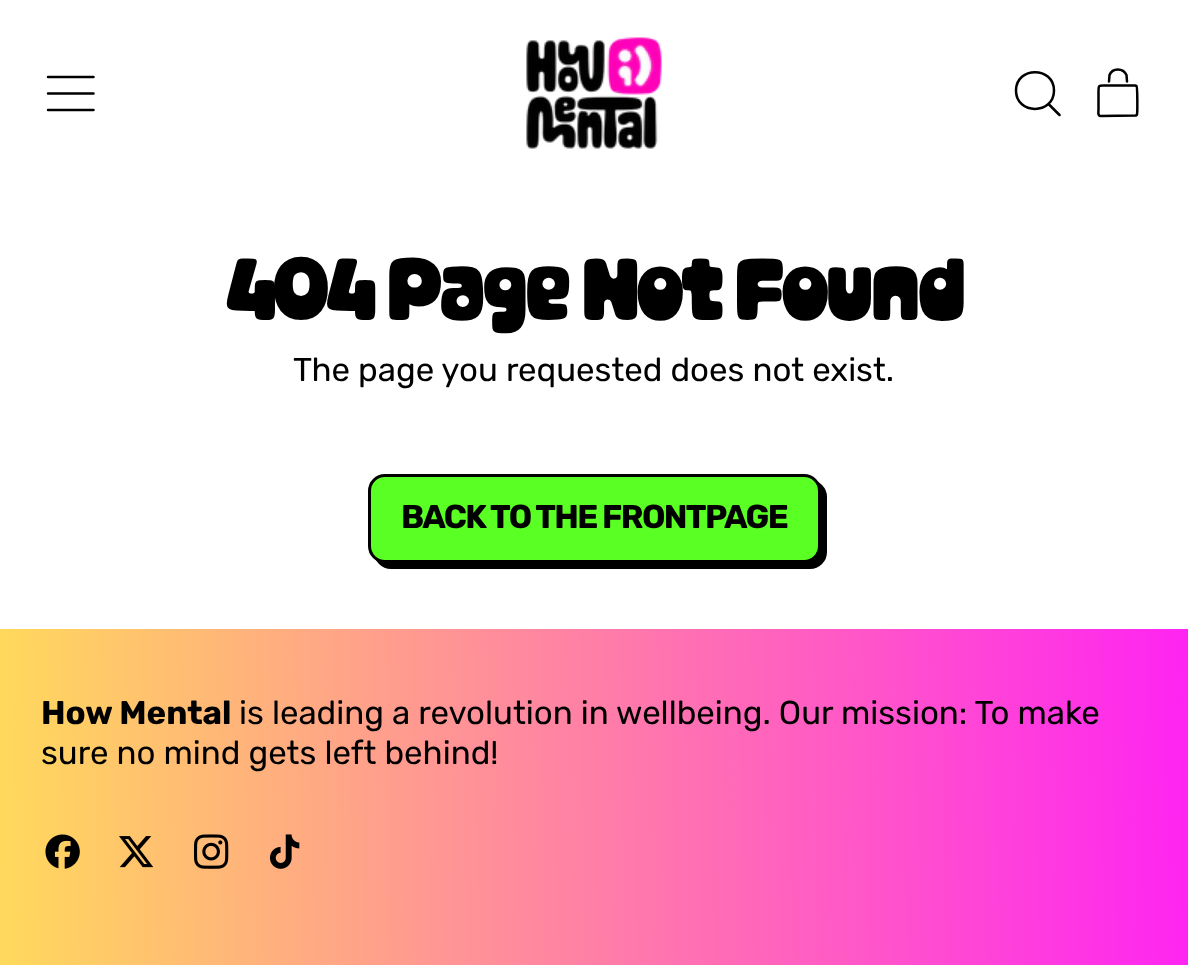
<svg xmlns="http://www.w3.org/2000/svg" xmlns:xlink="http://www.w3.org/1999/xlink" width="1188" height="965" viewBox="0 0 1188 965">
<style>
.cls-1{font:88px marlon;letter-spacing:-4.4px;fill:#000000}
.cls-2{font:33px Rubik;fill:#000000}
.cls-3{font:bold 33px Rubik;letter-spacing:-1.65px;fill:#000000}
.cls-4{font:bold 33px Rubik;fill:#000000}
</style>
<defs>
<linearGradient id="g1" gradientUnits="userSpaceOnUse" x1="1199" y1="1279" x2="-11" y2="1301"><stop offset="0" stop-color="#ff24f2"/><stop offset="1" stop-color="#ffdc59"/></linearGradient>
</defs>
<rect width="100%" height="100%" fill="#ffffff"/>
<path fill="none" stroke="#000000" stroke-width="2.5" stroke-linecap="round" stroke-linejoin="round" d="M93.5 110H48M93.5 93.5H48M93.5 77H48"/>
<image xlink:href="image0.png" x="526" y="37" width="136" height="112"/>
<path fill="none" stroke="#000000" stroke-width="2.5" stroke-linecap="round" stroke-linejoin="round" d="M1016 90.5C1016 115 1054 115 1054 90.5C1054 66 1016 66 1016 90.5ZM1059.5 115L1048.5 104"/>
<path fill="none" stroke="#000000" stroke-width="2.5" stroke-linecap="round" stroke-linejoin="round" d="M1135 85.5H1106.5C1098.5 85.5 1098.5 84.5 1098.5 92V109.5C1098.5 111 1097.5 116 1100.5 116L1136 115.5L1137 114.5C1137.5 112 1137.5 87 1136.5 86ZM1109 81.5L1109.5 75C1112.5 67.5 1123 67.5 1126.5 75L1127 81.5"/>
<rect fill="#000000" stroke="#000000" stroke-width="3" x="375.5" y="481.5" width="450" height="86" rx="15.5"/>
<rect fill="#5aff24" stroke="#000000" stroke-width="3" x="369.5" y="475.5" width="450" height="86" rx="15.5"/>
<rect fill="url(#g1)" x="0" y="629" width="1188" height="336"/>
<image xlink:href="image1.png" x="45" y="834" width="35" height="35"/>
<image xlink:href="image2.png" x="119" y="836" width="35" height="32"/>
<image xlink:href="image3.png" x="193" y="834" width="36" height="35"/>
<image xlink:href="image4.png" x="269" y="834" width="31" height="35"/>
<text class="cls-1" x="225" y="320">404 Page Not Found</text>
<text class="cls-2" x="293" y="381">The page you requested does not exist.</text>
<text class="cls-3" x="401" y="528">BACK TO THE FRONTPAGE</text>
<text class="cls-4" x="41" y="724">How Mental</text>
<text class="cls-2" x="239" y="724">is leading a revolution in wellbeing. Our mission: To make</text>
<text class="cls-2" x="41" y="764">sure no mind gets left behind!</text>
</svg>
